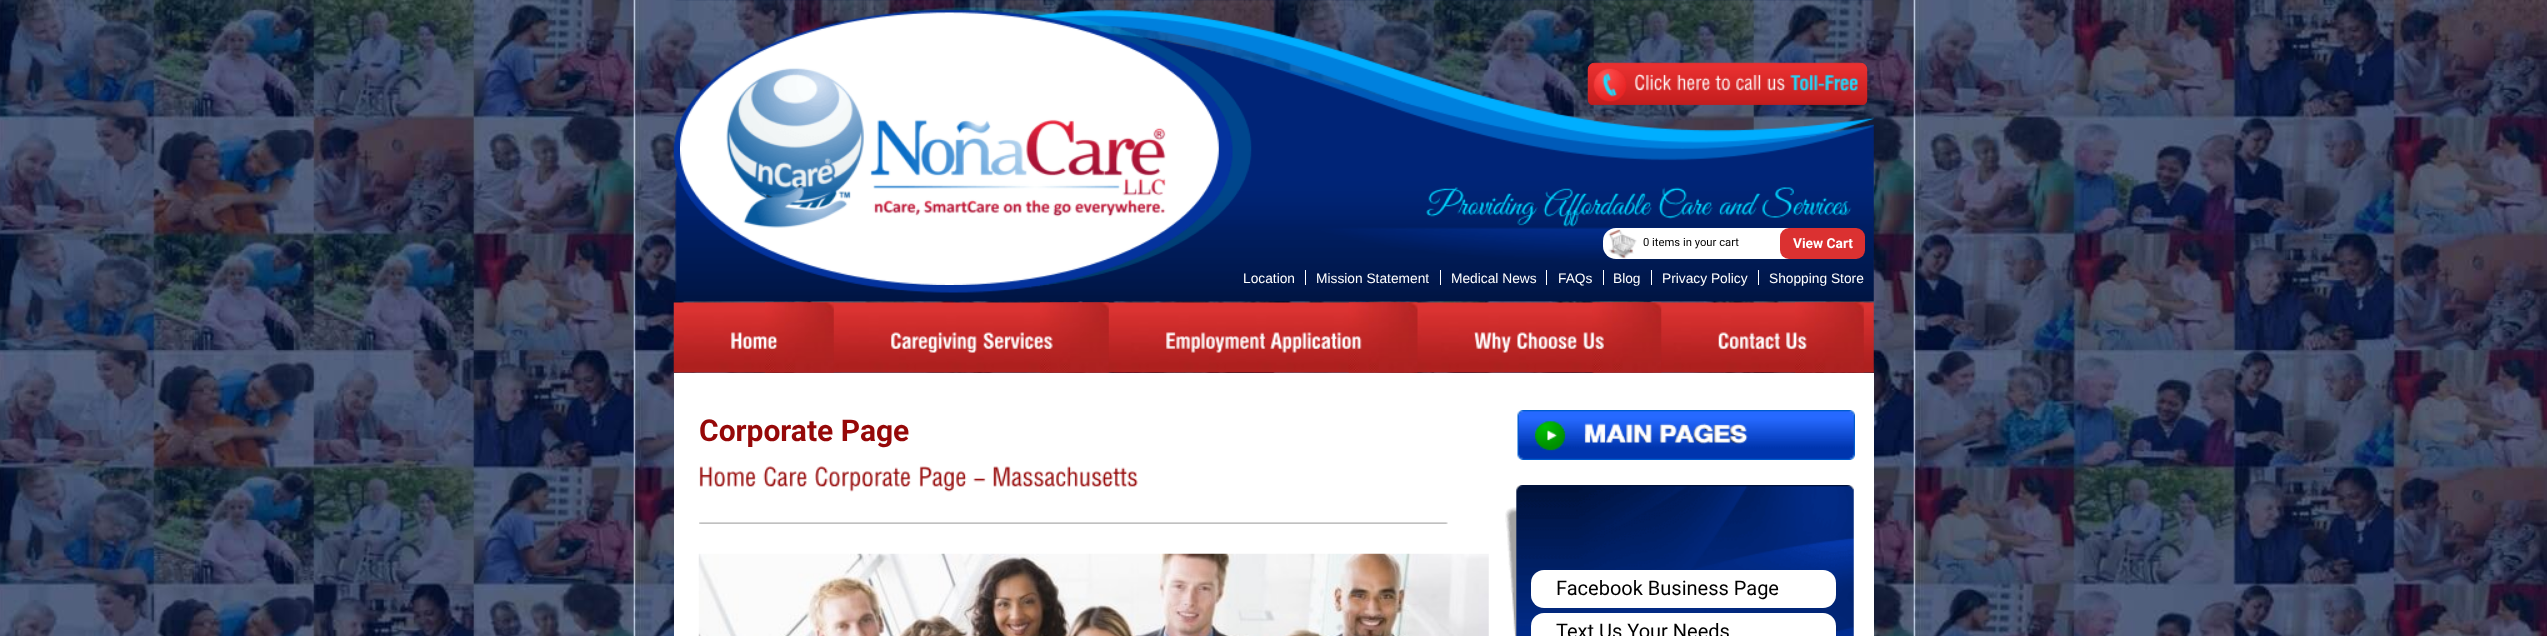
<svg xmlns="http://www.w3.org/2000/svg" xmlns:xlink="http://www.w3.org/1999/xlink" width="2547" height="636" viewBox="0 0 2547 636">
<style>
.cls-1{font:11.25px Roboto;fill:#000000}
.cls-2{font:bold 13.75px Roboto;fill:#ffffff}
.cls-3{font:13.75px Arimo;fill:#ffffff}
.cls-4{font:bold 30px Roboto;fill:#960808}
.cls-5{font:20px Roboto;fill:#000000}
</style>
<rect width="100%" height="100%" fill="#ffffff"/>
<image xlink:href="image0.png" x="0" y="0" width="2547" height="636"/>
<image xlink:href="image1.png" x="674" y="0" width="1200" height="302"/>
<image xlink:href="image2.png" x="673" y="7" width="579" height="286"/>
<image xlink:href="image3.png" x="680" y="12" width="539" height="273"/>
<image xlink:href="image4.png" x="1587" y="62" width="281" height="43"/>
<image xlink:href="image5.png" x="1593" y="68" width="34" height="34"/>
<image xlink:href="image6.png" x="1634" y="73" width="38" height="18"/>
<image xlink:href="image7.png" x="1677" y="74" width="34" height="17"/>
<image xlink:href="image8.png" x="1715" y="75" width="16" height="16"/>
<image xlink:href="image9.png" x="1736" y="74" width="25" height="17"/>
<image xlink:href="image10.png" x="1767" y="77" width="19" height="14"/>
<image xlink:href="image11.png" x="1790" y="74" width="68" height="18"/>
<image xlink:href="image12.png" x="1426" y="187" width="112" height="39"/>
<image xlink:href="image13.png" x="1543" y="188" width="109" height="39"/>
<image xlink:href="image14.png" x="1658" y="187" width="55" height="32"/>
<image xlink:href="image15.png" x="1718" y="193" width="43" height="23"/>
<image xlink:href="image16.png" x="1762" y="187" width="90" height="31"/>
<rect fill="#ffffff" x="1603" y="228" width="262" height="31" rx="13"/>
<image xlink:href="image17.png" x="1608" y="229" width="29" height="30"/>
<rect fill="#db3131" x="1780" y="228" width="85" height="31" rx="9"/>
<rect fill="#ffffff" x="1305" y="270" width="1" height="15"/>
<rect fill="#ffffff" x="1440" y="270" width="1" height="15"/>
<rect fill="#ffffff" x="1546" y="270" width="1" height="15"/>
<rect fill="#ffffff" x="1603" y="270" width="1" height="15"/>
<rect fill="#ffffff" x="1651" y="270" width="1" height="15"/>
<rect fill="#ffffff" x="1758" y="270" width="1" height="15"/>
<image xlink:href="image18.png" x="673" y="302" width="1201" height="71"/>
<image xlink:href="image19.png" x="765" y="302" width="69" height="71"/>
<image xlink:href="image20.png" x="731" y="332" width="47" height="17"/>
<image xlink:href="image21.png" x="1040" y="302" width="69" height="71"/>
<image xlink:href="image22.png" x="891" y="332" width="86" height="21"/>
<image xlink:href="image23.png" x="983" y="332" width="70" height="17"/>
<image xlink:href="image24.png" x="1348" y="302" width="70" height="71"/>
<image xlink:href="image25.png" x="1166" y="332" width="100" height="21"/>
<image xlink:href="image26.png" x="1270" y="332" width="92" height="21"/>
<image xlink:href="image27.png" x="1592" y="302" width="70" height="71"/>
<image xlink:href="image28.png" x="1473" y="332" width="39" height="21"/>
<image xlink:href="image29.png" x="1517" y="332" width="60" height="17"/>
<image xlink:href="image30.png" x="1583" y="332" width="21" height="17"/>
<image xlink:href="image31.png" x="1795" y="302" width="69" height="71"/>
<image xlink:href="image32.png" x="1718" y="332" width="63" height="17"/>
<image xlink:href="image33.png" x="1786" y="332" width="21" height="17"/>
<rect fill="#ffffff" x="674" y="373" width="1200" height="263"/>
<image xlink:href="image34.png" x="699" y="466" width="57" height="21"/>
<image xlink:href="image35.png" x="763" y="466" width="44" height="21"/>
<image xlink:href="image36.png" x="815" y="466" width="96" height="26"/>
<image xlink:href="image37.png" x="919" y="466" width="48" height="26"/>
<image xlink:href="image38.png" x="973" y="478" width="13" height="4"/>
<image xlink:href="image39.png" x="993" y="466" width="145" height="21"/>
<image xlink:href="image40.png" x="699" y="522" width="749" height="2"/>
<image xlink:href="image41.png" x="698" y="553" width="791" height="83"/>
<image xlink:href="image42.png" x="1517" y="410" width="338" height="50"/>
<image xlink:href="image43.png" x="1505" y="485" width="349" height="151"/>
<rect fill="#ffffff" x="1531" y="570" width="305" height="38" rx="13"/>
<rect fill="#ffffff" x="1531" y="613" width="305" height="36" rx="13"/>
<text class="cls-1" x="1643" y="246">0 items in your cart</text>
<text class="cls-2" x="1793" y="248">View Cart</text>
<text class="cls-3" x="1243" y="283">Location</text>
<text class="cls-3" x="1316" y="283">Mission Statement</text>
<text class="cls-3" x="1451" y="283">Medical News</text>
<text class="cls-3" x="1558" y="283">FAQs</text>
<text class="cls-3" x="1613" y="283">Blog</text>
<text class="cls-3" x="1662" y="283">Privacy Policy</text>
<text class="cls-3" x="1769" y="283">Shopping Store</text>
<text class="cls-4" x="699" y="441">Corporate Page</text>
<text class="cls-5" x="1556" y="595">Facebook Business Page</text>
<text class="cls-5" x="1556" y="638">Text Us Your Needs</text>
</svg>
